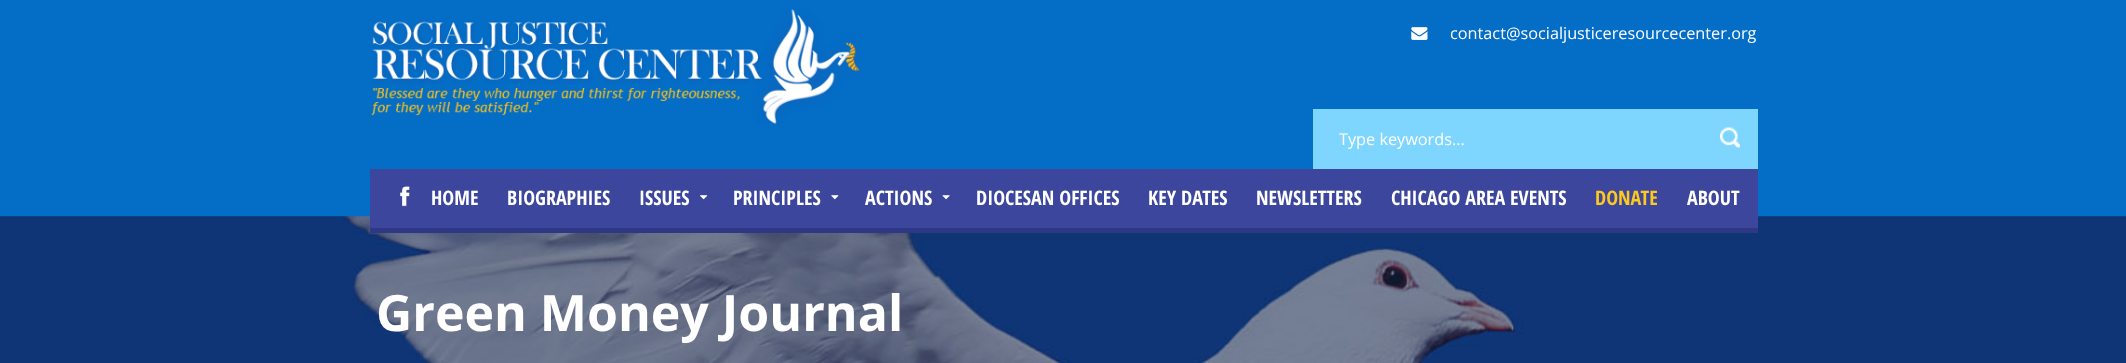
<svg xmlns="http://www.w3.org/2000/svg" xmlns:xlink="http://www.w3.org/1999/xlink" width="2126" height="363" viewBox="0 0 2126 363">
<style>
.cls-1{font:16.25px Open Sans;fill:#ffffff}
.cls-2{font:bold 20px Open Sans Condensed;fill:#ffffff}
.cls-3{font:bold 20px Open Sans Condensed;fill:#fdc820}
.cls-4{font:bold 50px Open Sans;fill:#ffffff}
</style>
<rect width="100%" height="100%" fill="#046dc6"/>
<image xlink:href="image0.png" x="371" y="9" width="489" height="115"/>
<image xlink:href="image1.png" x="1411" y="27" width="17" height="13"/>
<rect fill="#7ed6ff" x="1313" y="109" width="445" height="60"/>
<image xlink:href="image2.png" x="1720" y="127" width="20" height="21"/>
<image xlink:href="image7.png" x="0" y="216" width="2126" height="147"/>
<rect fill="#3c469c" x="370" y="169" width="1388" height="59"/>
<rect fill="#2f3884" x="370" y="228" width="1388" height="5"/>
<image xlink:href="image3.png" x="400" y="186" width="10" height="21"/>
<image xlink:href="image4.png" x="700" y="195" width="8" height="5"/>
<image xlink:href="image5.png" x="831" y="195" width="8" height="5"/>
<image xlink:href="image6.png" x="942" y="195" width="8" height="5"/>
<text class="cls-1" x="1450" y="39">contact@socialjusticeresourcecenter.org</text>
<text class="cls-1" x="1339" y="145">Type keywords...</text>
<text class="cls-2" x="431" y="205">HOME</text>
<text class="cls-2" x="507" y="205">BIOGRAPHIES</text>
<text class="cls-2" x="639" y="205">ISSUES</text>
<text class="cls-2" x="733" y="205">PRINCIPLES</text>
<text class="cls-2" x="865" y="205">ACTIONS</text>
<text class="cls-2" x="976" y="205">DIOCESAN OFFICES</text>
<text class="cls-2" x="1148" y="205">KEY DATES</text>
<text class="cls-2" x="1256" y="205">NEWSLETTERS</text>
<text class="cls-2" x="1391" y="205">CHICAGO AREA EVENTS</text>
<text class="cls-3" x="1595" y="205">DONATE</text>
<text class="cls-2" x="1687" y="205">ABOUT</text>
<text class="cls-4" x="376" y="331">Green Money Journal</text>
</svg>
